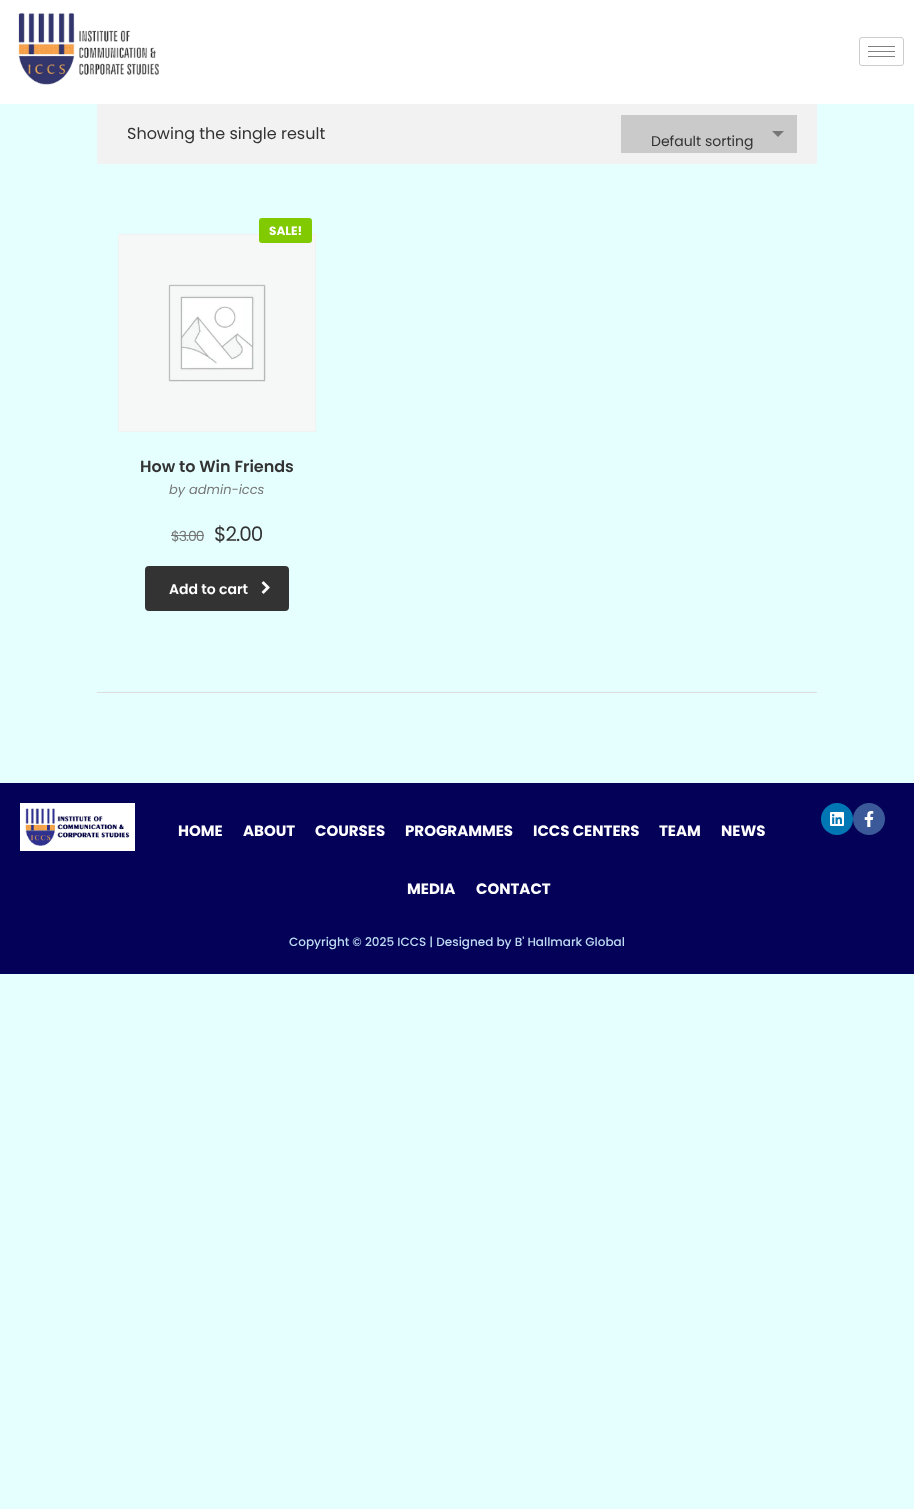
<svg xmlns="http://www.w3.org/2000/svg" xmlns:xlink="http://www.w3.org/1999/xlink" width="914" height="1509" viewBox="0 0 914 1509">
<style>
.cls-1{font:16px Poppins;fill:#333333}
.cls-2{font:14px Poppins;fill:#333333}
.cls-3{font:bold 12px Poppins;fill:#ffffff}
.cls-4{font:600 16px Poppins;fill:#333333}
.cls-5{font:italic 13px Poppins;fill:#777777}
.cls-6{font:14px Poppins;letter-spacing:-1px;fill:#777777}
.cls-7{font:20px Poppins;letter-spacing:-1px;fill:#333333}
.cls-8{font:600 14px Poppins;fill:#ffffff}
.cls-9{font:bold 15px Poppins;fill:#ffffff}
.cls-10{font:500 12px Poppins;fill:#bcdbf2}
</style>
<rect width="100%" height="100%" fill="#e5ffff"/>
<rect fill="#ffffff" x="0" y="0" width="914" height="104"/>
<image xlink:href="image0.png" x="18" y="12" width="142" height="73"/>
<rect fill="none" stroke="#cccccc" x="859.5" y="37.5" width="44" height="28" rx="2.5"/>
<rect fill="#808080" x="868" y="46" width="27" height="1"/>
<rect fill="#808080" x="868" y="51" width="27" height="1"/>
<rect fill="#808080" x="868" y="56" width="27" height="1"/>
<rect fill="#f2f2f2" x="97" y="104" width="720" height="60"/>
<rect fill="#cacaca" x="621" y="115" width="176" height="38"/>
<path fill="#777777" d="M772 131H784L778 137Z"/>
<rect fill="#dddddd" x="97" y="692" width="720" height="1"/>
<rect fill="none" stroke="#f2f2f2" x="118.5" y="234.5" width="197" height="197"/>
<image xlink:href="image1.png" x="119" y="235" width="196" height="196"/>
<rect fill="#81ca00" x="259" y="218" width="53" height="25" rx="3"/>
<rect fill="#777777" x="171" y="535" width="33" height="1"/>
<rect fill="#333333" stroke="#333333" stroke-width="3" x="146.5" y="567.5" width="141" height="42" rx="2.5"/>
<image xlink:href="image2.png" x="261" y="581" width="9" height="13"/>
<rect fill="#040158" x="0" y="783" width="914" height="191"/>
<image xlink:href="image3.png" x="20" y="803" width="115" height="48"/>
<circle fill="#0077b5" cx="837" cy="819" r="16"/>
<image xlink:href="image4.png" x="830" y="812" width="14" height="14"/>
<circle fill="#3b5998" cx="869" cy="819" r="16"/>
<image xlink:href="image5.png" x="864" y="811" width="10" height="16"/>
<text class="cls-1" x="127" y="139">Showing the single result</text>
<text class="cls-2" x="651" y="146">Default sorting</text>
<text class="cls-3" x="269" y="235">SALE!</text>
<text class="cls-4" x="140" y="472">How to Win Friends</text>
<text class="cls-5" x="169" y="494">by admin-iccs</text>
<text class="cls-6" x="171" y="541">$3.00</text>
<text class="cls-7" x="214" y="541">$2.00</text>
<text class="cls-8" x="169" y="594">Add to cart</text>
<text class="cls-9" x="178" y="836">HOME</text>
<text class="cls-9" x="243" y="836">ABOUT</text>
<text class="cls-9" x="315" y="836">COURSES</text>
<text class="cls-9" x="405" y="836">PROGRAMMES</text>
<text class="cls-9" x="533" y="836">ICCS CENTERS</text>
<text class="cls-9" x="659" y="836">TEAM</text>
<text class="cls-9" x="721" y="836">NEWS</text>
<text class="cls-9" x="407" y="894">MEDIA</text>
<text class="cls-9" x="476" y="894">CONTACT</text>
<text class="cls-10" x="289" y="946">Copyright © 2025 ICCS | Designed by B' Hallmark Global</text>
</svg>
